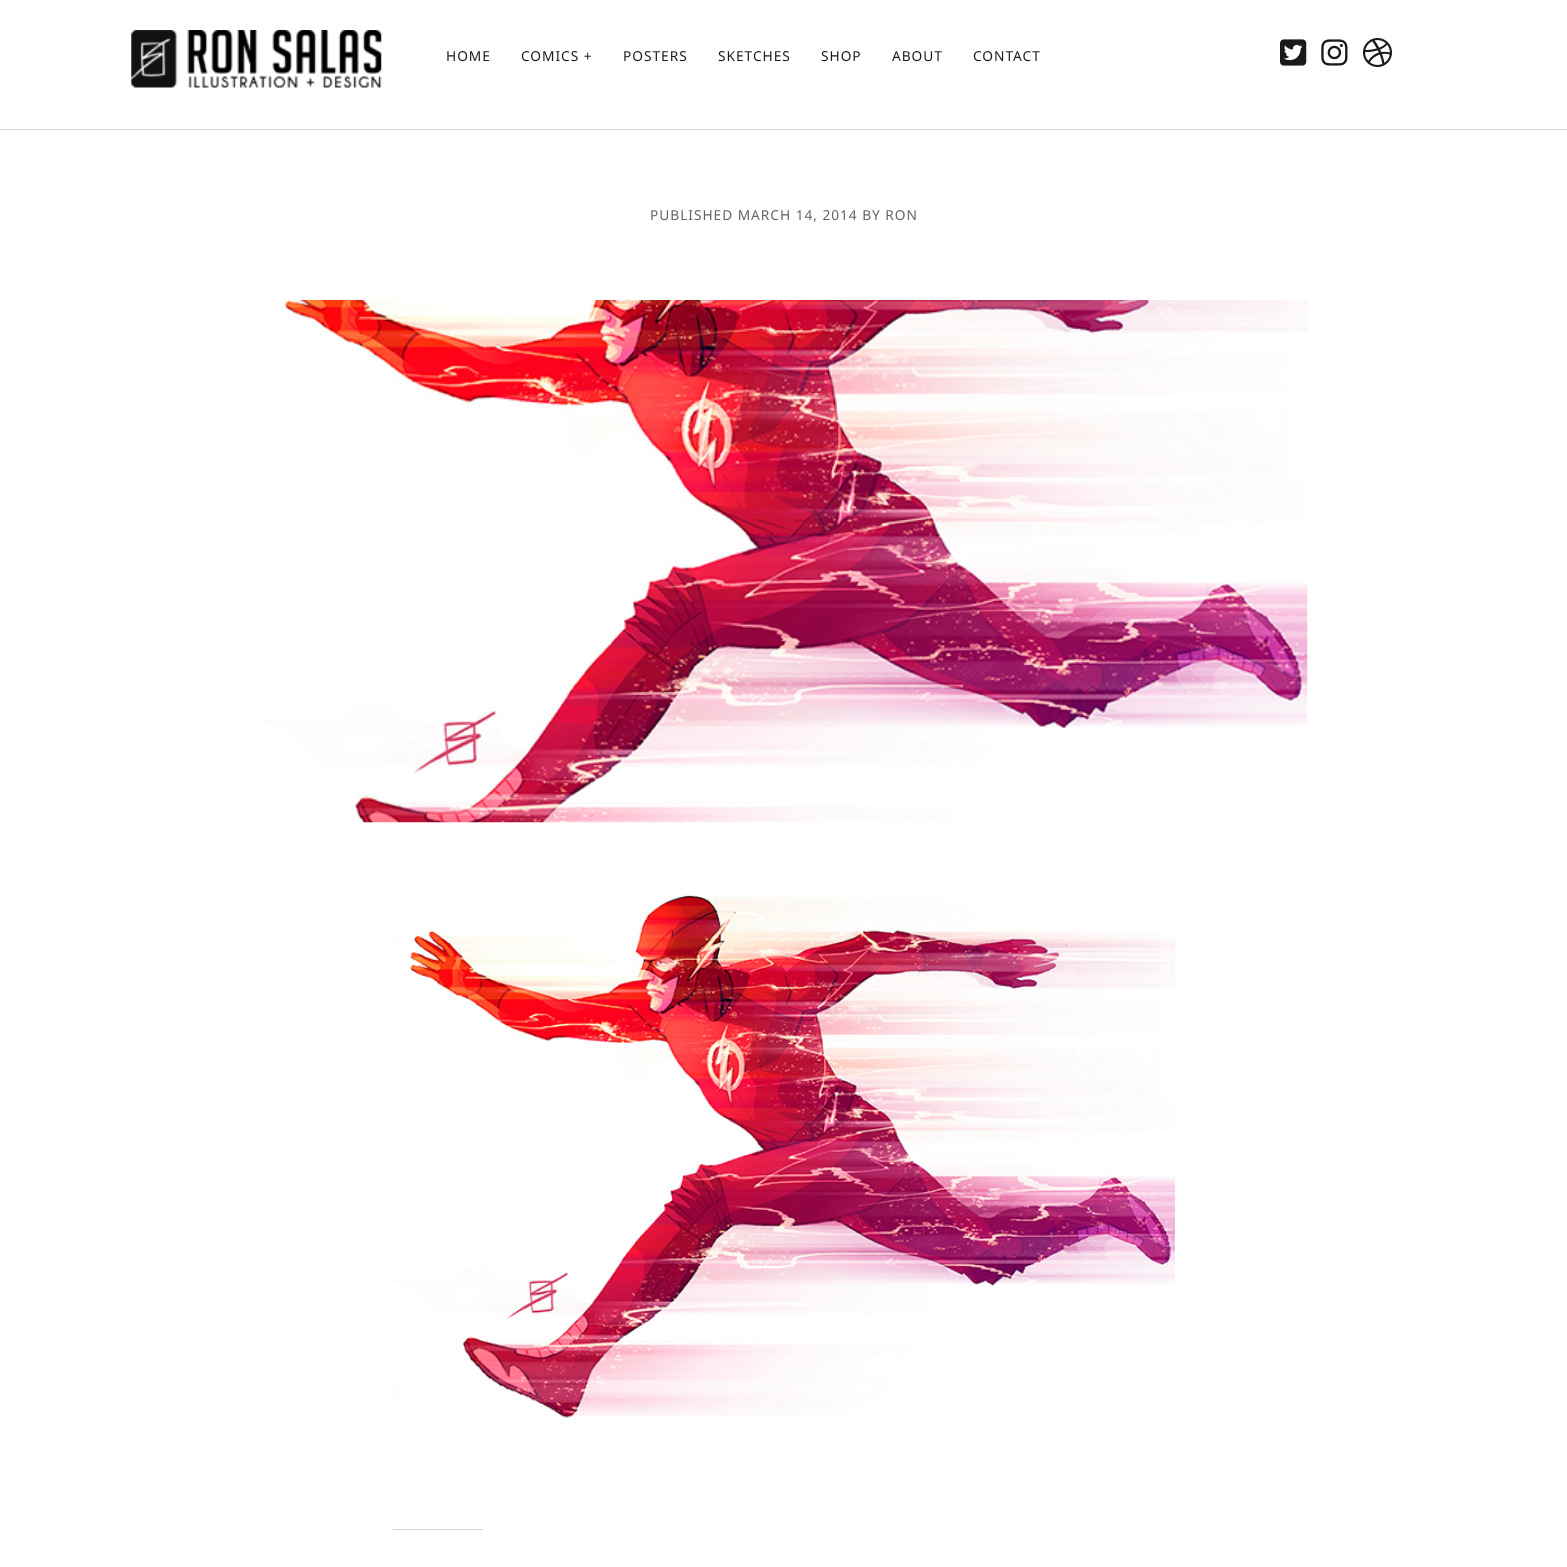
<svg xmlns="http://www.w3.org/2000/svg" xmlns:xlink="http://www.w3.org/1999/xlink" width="1567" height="1567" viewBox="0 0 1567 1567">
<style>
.cls-1{font:13.75px Noto Sans;letter-spacing:0.95px;fill:#1a1a1a}
.cls-2{font:13.75px Noto Sans;letter-spacing:0.95px;fill:#666666}
</style>
<rect width="100%" height="100%" fill="#ffffff"/>
<rect fill="#d4d4d4" x="0" y="129" width="1567" height="1"/>
<image xlink:href="image0.png" x="131" y="30" width="251" height="58"/>
<image xlink:href="image1.png" x="1280" y="39" width="27" height="27"/>
<image xlink:href="image2.png" x="1321" y="39" width="27" height="27"/>
<image xlink:href="image3.png" x="1363" y="38" width="29" height="29"/>
<image xlink:href="image4.png" x="262" y="300" width="1046" height="523"/>
<image xlink:href="image5.png" x="392" y="894" width="783" height="524"/>
<rect fill="#d4d4d4" x="393" y="1529" width="90" height="1"/>
<text class="cls-1" x="446" y="61">HOME</text>
<text class="cls-1" x="521" y="61">COMICS +</text>
<text class="cls-1" x="623" y="61">POSTERS</text>
<text class="cls-1" x="718" y="61">SKETCHES</text>
<text class="cls-1" x="821" y="61">SHOP</text>
<text class="cls-1" x="892" y="61">ABOUT</text>
<text class="cls-1" x="973" y="61">CONTACT</text>
<text class="cls-2" x="650" y="220">PUBLISHED MARCH 14, 2014 BY RON</text>
</svg>
